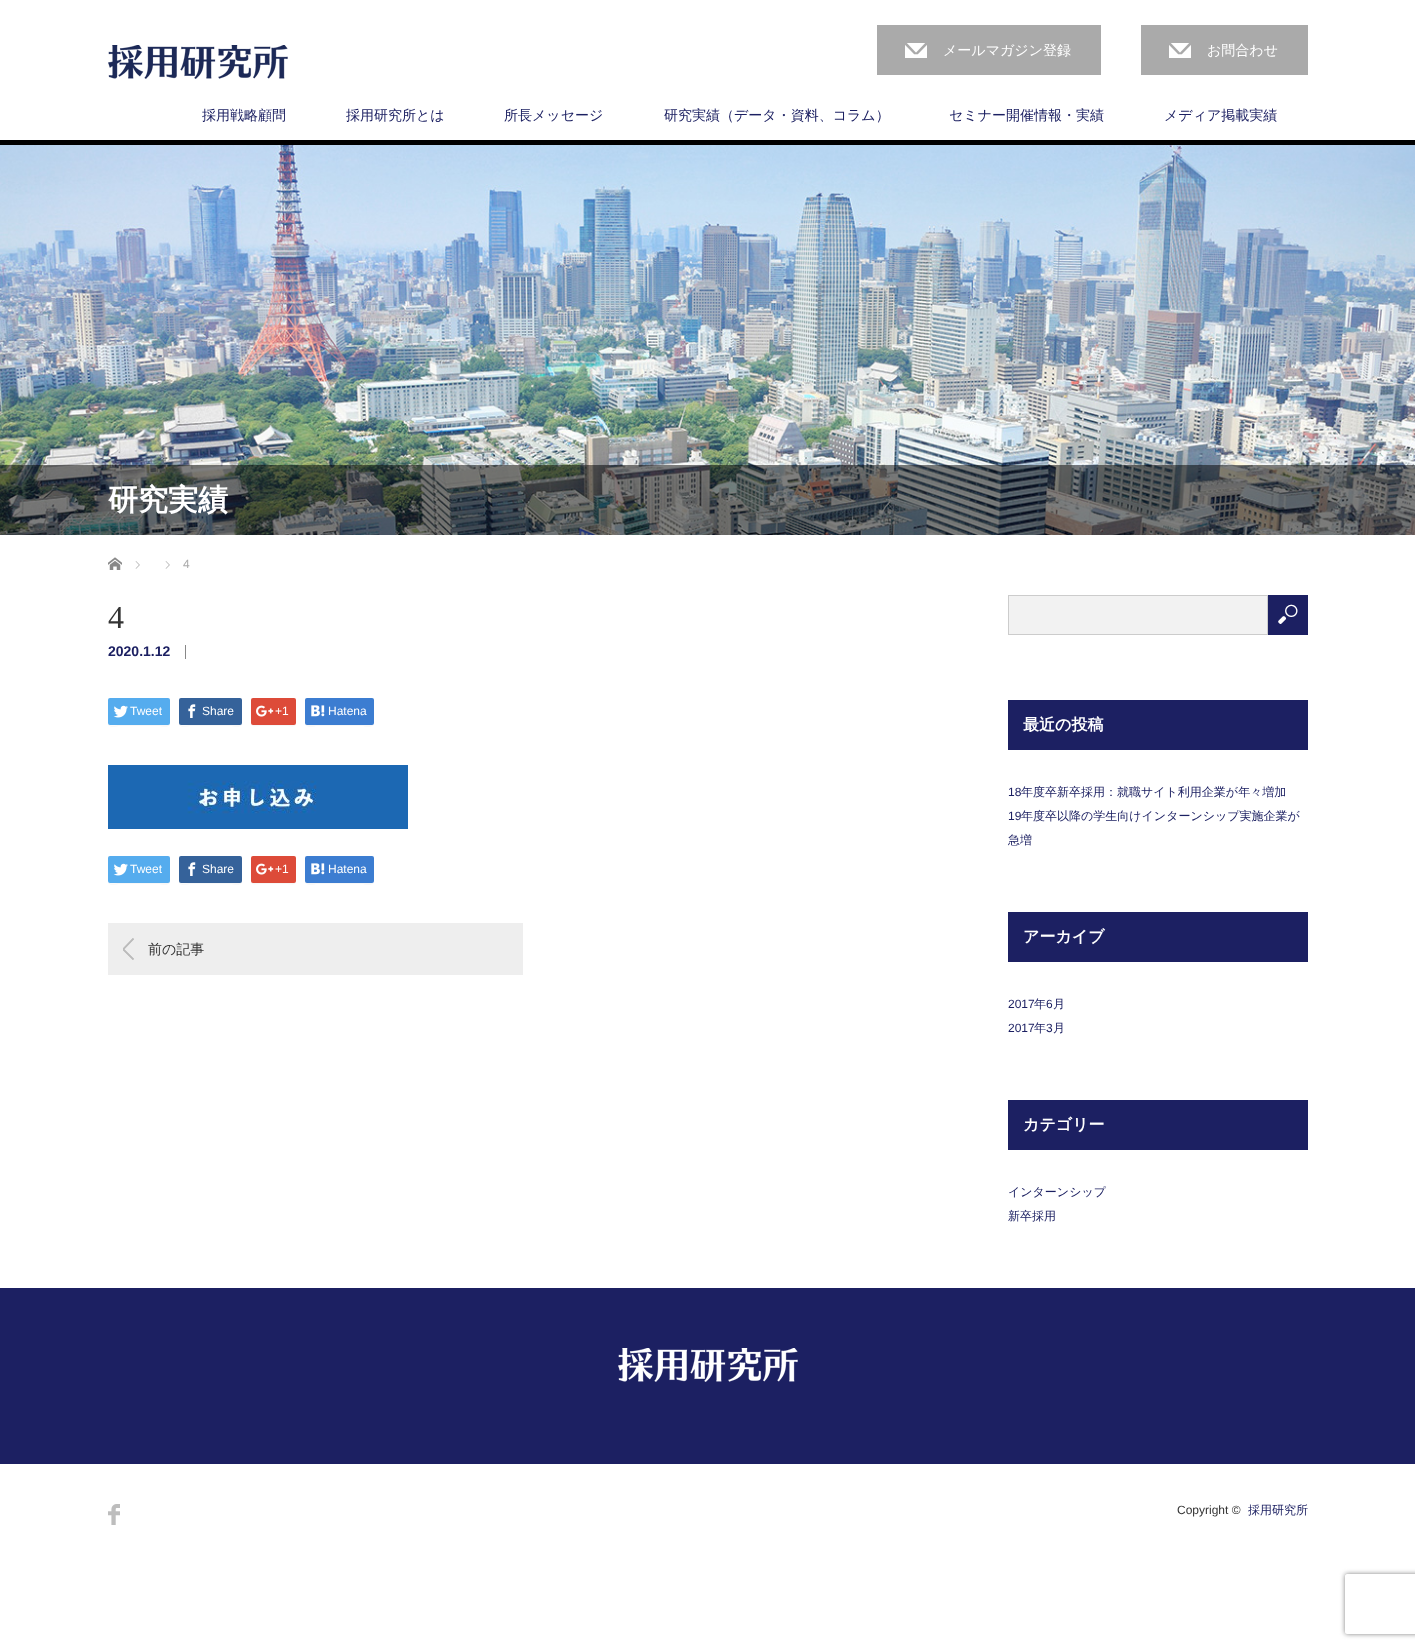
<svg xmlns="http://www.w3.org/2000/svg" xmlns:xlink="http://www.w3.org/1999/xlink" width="1415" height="1648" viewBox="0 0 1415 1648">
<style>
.cls-1{font:500 14px WenQuanYi Zen Hei;fill:#ffffff}
.cls-2{font:500 14px WenQuanYi Zen Hei;fill:#1c2062}
.cls-3{font:bold 30px WenQuanYi Zen Hei;fill:#ffffff}
.cls-4{font:12px Liberation Sans;fill:#aaaaaa}
.cls-5{font:32px Liberation Serif;fill:#333333}
.cls-6{font:bold 14px Liberation Sans;fill:#1c2062}
.cls-7{font:12px Liberation Sans;fill:#ffffff}
.cls-8{font:500 14px WenQuanYi Zen Hei;fill:#333333}
.cls-9{font:bold 16px WenQuanYi Zen Hei;fill:#ffffff}
.cls-10{font:12px Liberation Sans;fill:#1c2062}
.cls-11{font:500 12px WenQuanYi Zen Hei;fill:#1c2062}
.cls-12{font:12px Liberation Sans;fill:#333333}
</style>
<defs>
<clipPath id="clip1"><path d="M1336 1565H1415V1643H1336ZM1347 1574H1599C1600 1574 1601 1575 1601 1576V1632C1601 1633 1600 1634 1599 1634H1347C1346 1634 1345 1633 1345 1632V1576C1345 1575 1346 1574 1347 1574Z" clip-rule="evenodd"/></clipPath>
</defs>
<rect width="100%" height="100%" fill="#ffffff"/>
<rect fill="#000000" x="0" y="140" width="1415" height="5"/>
<image xlink:href="image0.png" x="108" y="45" width="180" height="34"/>
<rect fill="#aaaaaa" x="877" y="25" width="224" height="50"/>
<image xlink:href="image1.png" x="905" y="43" width="22" height="15"/>
<rect fill="#aaaaaa" x="1141" y="25" width="167" height="50"/>
<image xlink:href="image1.png" x="1169" y="43" width="22" height="15"/>
<image xlink:href="image2.png" x="0" y="145" width="1415" height="390"/>
<rect fill="#000000" fill-opacity="0.5" x="0" y="465" width="1415" height="70"/>
<image xlink:href="image3.png" x="108" y="557" width="14" height="13"/>
<image xlink:href="image4.png" x="135" y="561" width="5" height="8"/>
<image xlink:href="image4.png" x="165" y="561" width="5" height="8"/>
<rect fill="#888888" x="185" y="645" width="1" height="14"/>
<path fill="#f7f7f7" d="M108 723C108 729 116 726 120 726H158C162 726 170 729 170 723L169 725H120C116 725 108 727 108 723Z"/>
<rect fill="#55acee" x="108" y="698" width="62" height="27" rx="2"/>
<image xlink:href="image5.png" x="113" y="705" width="15" height="13"/>
<path fill="#f7f7f7" d="M179 723C179 729 187 726 191 726H230C234 726 242 729 242 723L241 725H191C187 725 179 727 179 723Z"/>
<rect fill="#35629a" x="179" y="698" width="63" height="27" rx="2"/>
<image xlink:href="image6.png" x="188" y="704" width="8" height="14"/>
<path fill="#f7f7f7" d="M251 723C251 728 256 726 260 726H287C291 726 296 728 296 723C296 724 295 725 294 725H253C252 725 251 724 251 723Z"/>
<rect fill="#dd4b39" x="251" y="698" width="45" height="27" rx="2"/>
<image xlink:href="image7.png" x="256" y="705" width="18" height="12"/>
<path fill="#f7f7f7" d="M305 723C305 729 314 726 318 726H361C365 726 374 729 374 723C374 724 373 725 372 725H306Z"/>
<rect fill="#3c7dd1" x="305" y="698" width="69" height="27" rx="2"/>
<image xlink:href="image8.png" x="311" y="705" width="14" height="12"/>
<image xlink:href="image9.png" x="108" y="765" width="300" height="64"/>
<path fill="#f7f7f7" d="M108 881C108 887 116 884 120 884H158C162 884 170 887 170 881L169 883H120C116 883 108 885 108 881Z"/>
<rect fill="#55acee" x="108" y="856" width="62" height="27" rx="2"/>
<image xlink:href="image5.png" x="113" y="863" width="15" height="13"/>
<path fill="#f7f7f7" d="M179 881C179 887 187 884 191 884H230C234 884 242 887 242 881L241 883H191C187 883 179 885 179 881Z"/>
<rect fill="#35629a" x="179" y="856" width="63" height="27" rx="2"/>
<image xlink:href="image6.png" x="188" y="862" width="8" height="14"/>
<path fill="#f7f7f7" d="M251 881C251 886 256 884 260 884H287C291 884 296 886 296 881C296 882 295 883 294 883H253C252 883 251 882 251 881Z"/>
<rect fill="#dd4b39" x="251" y="856" width="45" height="27" rx="2"/>
<image xlink:href="image7.png" x="256" y="863" width="18" height="12"/>
<path fill="#f7f7f7" d="M305 881C305 887 314 884 318 884H361C365 884 374 887 374 881C374 882 373 883 372 883H306Z"/>
<rect fill="#3c7dd1" x="305" y="856" width="69" height="27" rx="2"/>
<image xlink:href="image8.png" x="311" y="863" width="14" height="12"/>
<rect fill="#eeeeee" x="108" y="923" width="415" height="52"/>
<image xlink:href="image10.png" x="123" y="938" width="11" height="22"/>
<rect fill="#f2f2f2" stroke="#cccccc" x="1008.5" y="595.5" width="259" height="39"/>
<rect fill="#1c2062" x="1268" y="595" width="40" height="40"/>
<image xlink:href="image11.png" x="1278" y="604" width="20" height="20"/>
<rect fill="#1c2062" x="1008" y="700" width="300" height="50"/>
<rect fill="#1c2062" x="1008" y="912" width="300" height="50"/>
<rect fill="#1c2062" x="1008" y="1100" width="300" height="50"/>
<rect fill="#1c2062" x="0" y="1288" width="1415" height="176"/>
<image xlink:href="image12.png" x="618" y="1348" width="180" height="34"/>
<image xlink:href="image13.png" x="108" y="1504" width="12" height="21"/>
<g clip-path="url(#clip1)">
<rect fill="#808080" filter="blur(2.5px)" x="1345" y="1574" width="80" height="60" rx="2"/>
</g>
<text class="cls-1" x="943" y="55">メールマガジン登録</text>
<text class="cls-1" x="1207" y="55">お問合わせ</text>
<text class="cls-2" x="202" y="120">採用戦略顧問</text>
<text class="cls-2" x="346" y="120">採用研究所とは</text>
<text class="cls-2" x="504" y="120">所長メッセージ</text>
<text class="cls-2" x="664" y="120">研究実績（データ・資料、コラム）</text>
<text class="cls-2" x="949" y="120">セミナー開催情報・実績</text>
<text class="cls-2" x="1164" y="120">メディア掲載実績</text>
<text class="cls-3" x="108" y="510">研究実績</text>
<text class="cls-4" x="183" y="568">4</text>
<text class="cls-5" x="108" y="628">4</text>
<text class="cls-6" x="108" y="656">2020.1.12</text>
<text class="cls-7" x="130" y="715">Tweet</text>
<text class="cls-7" x="202" y="715">Share</text>
<text class="cls-7" x="275" y="715">+1</text>
<text class="cls-7" x="328" y="715">Hatena</text>
<text class="cls-7" x="130" y="873">Tweet</text>
<text class="cls-7" x="202" y="873">Share</text>
<text class="cls-7" x="275" y="873">+1</text>
<text class="cls-7" x="328" y="873">Hatena</text>
<text class="cls-8" x="148" y="954">前の記事</text>
<text class="cls-9" x="1023" y="730">最近の投稿</text>
<text class="cls-10" x="1008" y="796">18</text>
<text class="cls-11" x="1021" y="796">年度卒新卒採用：就職サイト利用企業が年々増加</text>
<text class="cls-10" x="1008" y="820">19</text>
<text class="cls-11" x="1021" y="820">年度卒以降の学生向けインターンシップ実施企業が</text>
<text class="cls-11" x="1008" y="844">急増</text>
<text class="cls-9" x="1023" y="942">アーカイブ</text>
<text class="cls-10" x="1008" y="1008">2017</text>
<text class="cls-11" x="1034" y="1008">年</text>
<text class="cls-10" x="1046" y="1008">6</text>
<text class="cls-11" x="1053" y="1008">月</text>
<text class="cls-10" x="1008" y="1032">2017</text>
<text class="cls-11" x="1034" y="1032">年</text>
<text class="cls-10" x="1046" y="1032">3</text>
<text class="cls-11" x="1053" y="1032">月</text>
<text class="cls-9" x="1023" y="1130">カテゴリー</text>
<text class="cls-11" x="1008" y="1196">インターンシップ</text>
<text class="cls-11" x="1008" y="1220">新卒採用</text>
<text class="cls-12" x="1177" y="1514">Copyright ©</text>
<text class="cls-11" x="1248" y="1514">採用研究所</text>
</svg>
